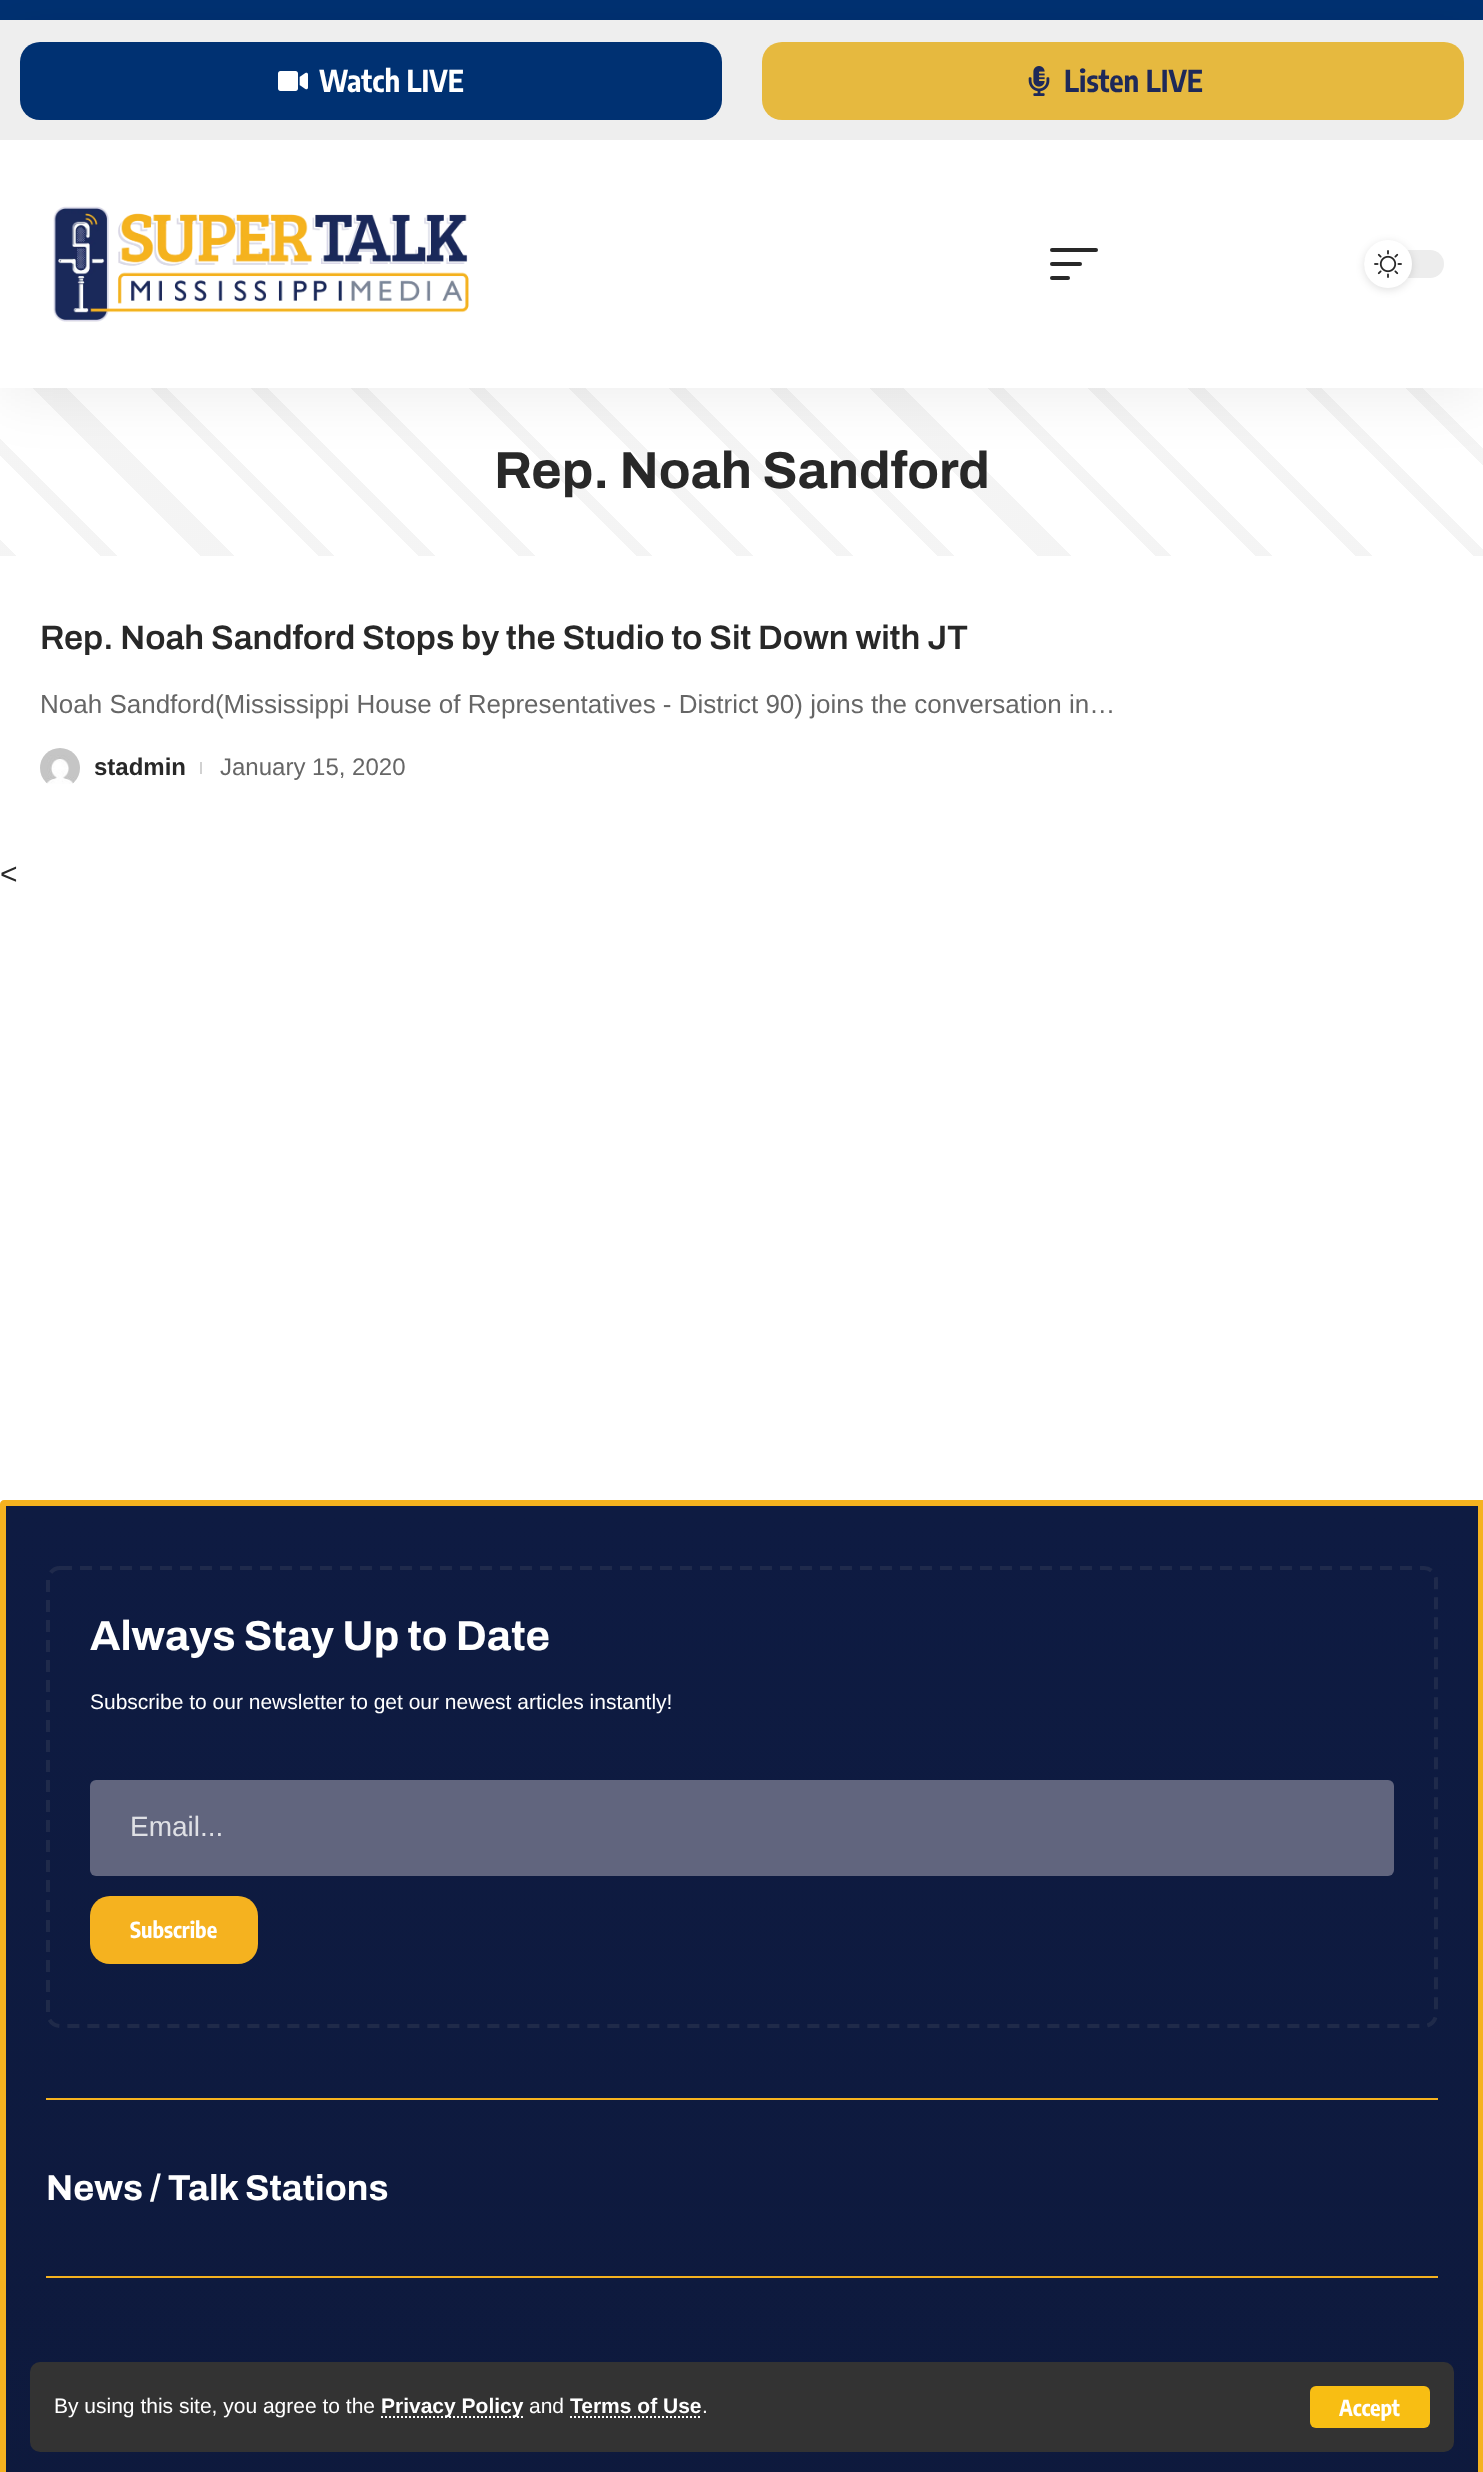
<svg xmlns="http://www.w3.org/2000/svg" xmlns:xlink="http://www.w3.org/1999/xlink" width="1483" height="2472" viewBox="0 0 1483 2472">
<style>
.cls-1{font:bold 30px Encode Sans Condensed;fill:#ffffff}
.cls-2{font:bold 30px Encode Sans Condensed;fill:#1e2959}
.cls-3{font:21px Liberation Sans;fill:#ffffff}
.cls-4{font:bold 21px Liberation Sans;fill:#ffffff}
.cls-5{font:bold 22px Encode Sans Condensed;fill:#ffffff}
.cls-6{font:bold 52px Archivo;fill:#282828}
.cls-7{font:600 34px Archivo;fill:#282828}
.cls-8{font:26px Liberation Sans;fill:#666666}
.cls-9{font:bold 24px Liberation Sans;fill:#282828}
.cls-10{font:24px Liberation Sans;fill:#666666}
.cls-11{font:30px Liberation Sans;fill:#282828}
.cls-12{font:bold 42px Archivo;fill:#ffffff}
.cls-13{font:28px Liberation Sans;fill:#dfe0e5}
.cls-14{font:bold 36px Archivo;fill:#ffffff}
</style>
<defs>
<linearGradient id="g1" gradientUnits="userSpaceOnUse" x1="329" y1="885" x2="1166" y2="48"><stop offset="0" stop-color="#282828" stop-opacity="0.05"/><stop offset="0.01" stop-color="#282828" stop-opacity="0.05"/><stop offset="0.01" stop-color="#282828" stop-opacity="0"/><stop offset="0.06" stop-color="#282828" stop-opacity="0"/><stop offset="0.06" stop-color="#282828" stop-opacity="0.05"/><stop offset="0.07" stop-color="#282828" stop-opacity="0.05"/><stop offset="0.07" stop-color="#282828" stop-opacity="0"/><stop offset="0.12" stop-color="#282828" stop-opacity="0"/><stop offset="0.12" stop-color="#282828" stop-opacity="0.05"/><stop offset="0.14" stop-color="#282828" stop-opacity="0.05"/><stop offset="0.14" stop-color="#282828" stop-opacity="0"/><stop offset="0.19" stop-color="#282828" stop-opacity="0"/><stop offset="0.19" stop-color="#282828" stop-opacity="0.05"/><stop offset="0.2" stop-color="#282828" stop-opacity="0.05"/><stop offset="0.2" stop-color="#282828" stop-opacity="0"/><stop offset="0.25" stop-color="#282828" stop-opacity="0"/><stop offset="0.25" stop-color="#282828" stop-opacity="0.05"/><stop offset="0.26" stop-color="#282828" stop-opacity="0.05"/><stop offset="0.26" stop-color="#282828" stop-opacity="0"/><stop offset="0.31" stop-color="#282828" stop-opacity="0"/><stop offset="0.31" stop-color="#282828" stop-opacity="0.05"/><stop offset="0.32" stop-color="#282828" stop-opacity="0.05"/><stop offset="0.32" stop-color="#282828" stop-opacity="0"/><stop offset="0.38" stop-color="#282828" stop-opacity="0"/><stop offset="0.38" stop-color="#282828" stop-opacity="0.05"/><stop offset="0.39" stop-color="#282828" stop-opacity="0.05"/><stop offset="0.39" stop-color="#282828" stop-opacity="0"/><stop offset="0.44" stop-color="#282828" stop-opacity="0"/><stop offset="0.44" stop-color="#282828" stop-opacity="0.05"/><stop offset="0.45" stop-color="#282828" stop-opacity="0.05"/><stop offset="0.45" stop-color="#282828" stop-opacity="0"/><stop offset="0.5" stop-color="#282828" stop-opacity="0"/><stop offset="0.5" stop-color="#282828" stop-opacity="0.05"/><stop offset="0.51" stop-color="#282828" stop-opacity="0.05"/><stop offset="0.51" stop-color="#282828" stop-opacity="0"/><stop offset="0.56" stop-color="#282828" stop-opacity="0"/><stop offset="0.56" stop-color="#282828" stop-opacity="0.05"/><stop offset="0.57" stop-color="#282828" stop-opacity="0.05"/><stop offset="0.57" stop-color="#282828" stop-opacity="0"/><stop offset="0.62" stop-color="#282828" stop-opacity="0"/><stop offset="0.62" stop-color="#282828" stop-opacity="0.05"/><stop offset="0.64" stop-color="#282828" stop-opacity="0.05"/><stop offset="0.64" stop-color="#282828" stop-opacity="0"/><stop offset="0.69" stop-color="#282828" stop-opacity="0"/><stop offset="0.69" stop-color="#282828" stop-opacity="0.05"/><stop offset="0.7" stop-color="#282828" stop-opacity="0.05"/><stop offset="0.7" stop-color="#282828" stop-opacity="0"/><stop offset="0.75" stop-color="#282828" stop-opacity="0"/><stop offset="0.75" stop-color="#282828" stop-opacity="0.05"/><stop offset="0.76" stop-color="#282828" stop-opacity="0.05"/><stop offset="0.76" stop-color="#282828" stop-opacity="0"/><stop offset="0.81" stop-color="#282828" stop-opacity="0"/><stop offset="0.81" stop-color="#282828" stop-opacity="0.05"/><stop offset="0.82" stop-color="#282828" stop-opacity="0.05"/><stop offset="0.82" stop-color="#282828" stop-opacity="0"/><stop offset="0.88" stop-color="#282828" stop-opacity="0"/><stop offset="0.88" stop-color="#282828" stop-opacity="0.05"/><stop offset="0.89" stop-color="#282828" stop-opacity="0.05"/><stop offset="0.89" stop-color="#282828" stop-opacity="0"/><stop offset="0.94" stop-color="#282828" stop-opacity="0"/><stop offset="0.94" stop-color="#282828" stop-opacity="0.05"/><stop offset="0.95" stop-color="#282828" stop-opacity="0.05"/><stop offset="0.95" stop-color="#282828" stop-opacity="0"/><stop offset="1" stop-color="#000000" stop-opacity="0"/></linearGradient>
<clipPath id="clip1"><path d="M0 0H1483V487H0ZM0 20H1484V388H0Z" clip-rule="evenodd"/></clipPath>
<linearGradient id="g2" gradientUnits="userSpaceOnUse" x1="742" y1="1506" x2="742" y2="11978"><stop offset="0" stop-color="#0e1b42"/><stop offset="1" stop-color="#0c0c0c"/></linearGradient>
</defs>
<rect width="100%" height="100%" fill="#ffffff"/>
<rect fill="#003172" x="0" y="0" width="1483" height="20"/>
<rect fill="url(#g1)" x="0" y="388" width="1483" height="168"/>
<g clip-path="url(#clip1)">
<rect fill="#000000" fill-opacity="0.07" filter="blur(30px)" x="0" y="28" width="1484" height="368"/>
</g>
<rect fill="#eeeeee" x="0" y="20" width="1483" height="120"/>
<rect fill="#003172" x="20" y="42" width="702" height="78" rx="20"/>
<image xlink:href="image0.png" x="278" y="71" width="30" height="20"/>
<rect fill="#e6b93f" x="762" y="42" width="702" height="78" rx="20"/>
<image xlink:href="image1.png" x="1028" y="66" width="22" height="30"/>
<image xlink:href="image2.png" x="53" y="206" width="416" height="116"/>
<rect fill="#282828" x="1050" y="248" width="48" height="4" rx="2"/>
<rect fill="#282828" x="1050" y="262" width="32" height="4" rx="2"/>
<rect fill="#282828" x="1050" y="276" width="20" height="4" rx="2"/>
<rect fill="#ededed" x="1364" y="250" width="80" height="28" rx="14"/>
<rect fill="#000000" fill-opacity="0.12" filter="blur(4px)" x="1364" y="242" width="48" height="48" rx="24"/>
<circle fill="#ffffff" cx="1388" cy="264" r="24"/>
<image xlink:href="image3.png" x="1374" y="250" width="28" height="28"/>
<rect fill="url(#g2)" x="6" y="1506" width="1472" height="966"/>
<path fill="none" stroke="#f5b21f" stroke-width="6" d="M4 1503H1481V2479H3V1504C3 1503.5 3.5 1503 4 1503Z"/>
<rect fill="#333333" x="30" y="2362" width="1424" height="90" rx="10"/>
<path fill="none" stroke="#ffffff" stroke-width="2" stroke-dasharray="2 2" d="M381 2417H523.5"/>
<path fill="none" stroke="#ffffff" stroke-width="2" stroke-dasharray="2 2" d="M570 2417H701.5"/>
<rect fill="#f8be13" x="1310" y="2386" width="120" height="42" rx="6"/>
<image xlink:href="image4.png" x="40" y="748" width="40" height="36"/>
<rect fill="#d1d1d1" x="200" y="762" width="2" height="12"/>
<path fill="none" stroke="#888888" stroke-opacity="0.15" stroke-width="4" stroke-dasharray="12 8" d="M60 1568H1424C1430.5 1568 1436 1573.5 1436 1580V2014C1436 2020.5 1430.5 2026 1424 2026H60C53.5 2026 48 2020.5 48 2014V1580C48 1573.5 53.5 1568 60 1568Z"/>
<rect fill="#61657e" x="90" y="1780" width="1304" height="96" rx="6"/>
<rect fill="#f5b21f" x="90" y="1896" width="168" height="68" rx="20"/>
<rect fill="#f5b21f" x="46" y="2098" width="1392" height="2"/>
<rect fill="#f5b21f" x="46" y="2276" width="1392" height="2"/>
<text class="cls-1" x="319" y="92">Watch LIVE</text>
<text class="cls-2" x="1064" y="92">Listen LIVE</text>
<text class="cls-3" x="54" y="2413">By using this site, you agree to the</text>
<text class="cls-4" x="381" y="2413">Privacy Policy</text>
<text class="cls-3" x="529" y="2413">and</text>
<text class="cls-4" x="570" y="2413">Terms of Use</text>
<text class="cls-3" x="702" y="2413">.</text>
<text class="cls-5" x="1339" y="2416">Accept</text>
<text class="cls-6" x="494" y="488">Rep. Noah Sandford</text>
<text class="cls-7" x="40" y="649">Rep. Noah Sandford Stops by the Studio to Sit Down with JT</text>
<text class="cls-8" x="40" y="713">Noah Sandford(Mississippi House of Representatives - District 90) joins the conversation in…</text>
<text class="cls-9" x="94" y="775">stadmin</text>
<text class="cls-10" x="220" y="775">January 15, 2020</text>
<text class="cls-11" x="0" y="884">&lt;</text>
<text class="cls-12" x="90" y="1650">Always Stay Up to Date</text>
<text class="cls-3" x="90" y="1709">Subscribe to our newsletter to get our newest articles instantly!</text>
<text class="cls-13" x="130" y="1836">Email...</text>
<text class="cls-5" x="130" y="1938">Subscribe</text>
<text class="cls-14" x="46" y="2200">News / Talk Stations</text>
</svg>
